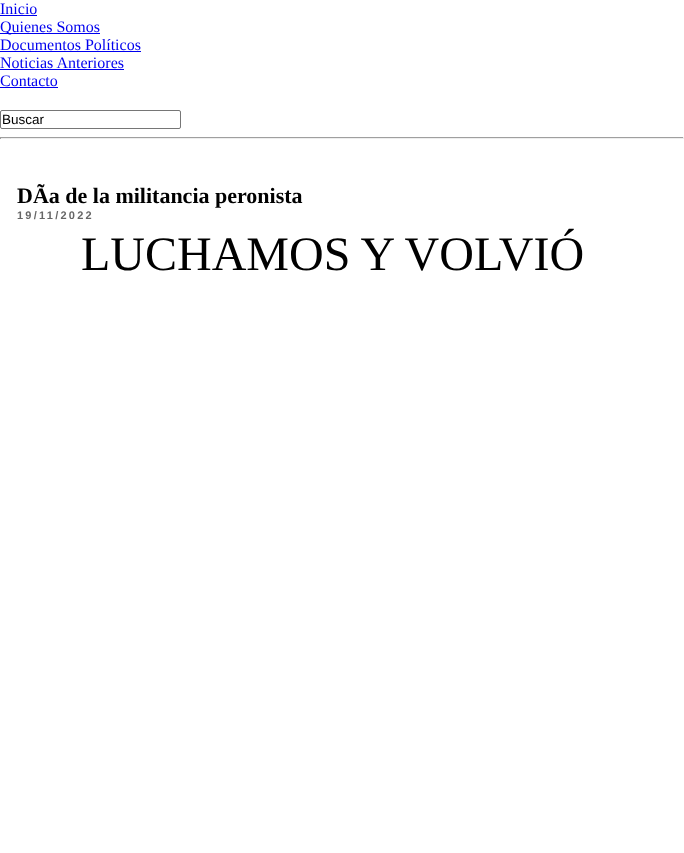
<svg xmlns="http://www.w3.org/2000/svg" xmlns:xlink="http://www.w3.org/1999/xlink" width="684" height="853" viewBox="0 0 684 853">
<style>
.cls-1{font:16px Liberation Serif;fill:#0000ee}
.cls-2{font:13.5px Liberation Sans;fill:#000000}
.cls-3{font:bold 22px Liberation Serif;fill:#000000}
.cls-4{font:bold 11px Liberation Sans;letter-spacing:2.25px;fill:#666666}
.cls-5{font:48px Liberation Serif;fill:#000000}
</style>
<rect width="100%" height="100%" fill="#ffffff"/>
<rect fill="#0000ee" x="0" y="15" width="37" height="1"/>
<rect fill="#0000ee" x="0" y="33" width="100" height="1"/>
<rect fill="#0000ee" x="0" y="51" width="141" height="1"/>
<rect fill="#0000ee" x="0" y="69" width="124" height="1"/>
<rect fill="#0000ee" x="0" y="87" width="58" height="1"/>
<rect fill="none" stroke="#767676" x="0.5" y="110.5" width="180" height="18" rx="1.5"/>
<rect fill="#9f9f9f" x="0" y="137" width="684" height="1"/>
<rect fill="#eeeeee" x="683" y="137" width="1" height="2"/>
<rect fill="#eeeeee" x="0" y="138" width="684" height="1"/>
<rect fill="#9f9f9f" x="0" y="137" width="1" height="2"/>
<text class="cls-1"><tspan x="0" y="14">Inicio</tspan><tspan x="0" y="32">Quienes Somos</tspan><tspan x="0" y="50">Documentos Políticos</tspan><tspan x="0" y="68">Noticias Anteriores</tspan><tspan x="0" y="86">Contacto</tspan></text>
<text class="cls-2" x="2" y="124">Buscar</text>
<text class="cls-3" x="17" y="203">DÃa de la militancia peronista</text>
<text class="cls-4" x="17" y="219">19/11/2022</text>
<text class="cls-5" x="81" y="270">LUCHAMOS Y VOLVIÓ</text>
</svg>
